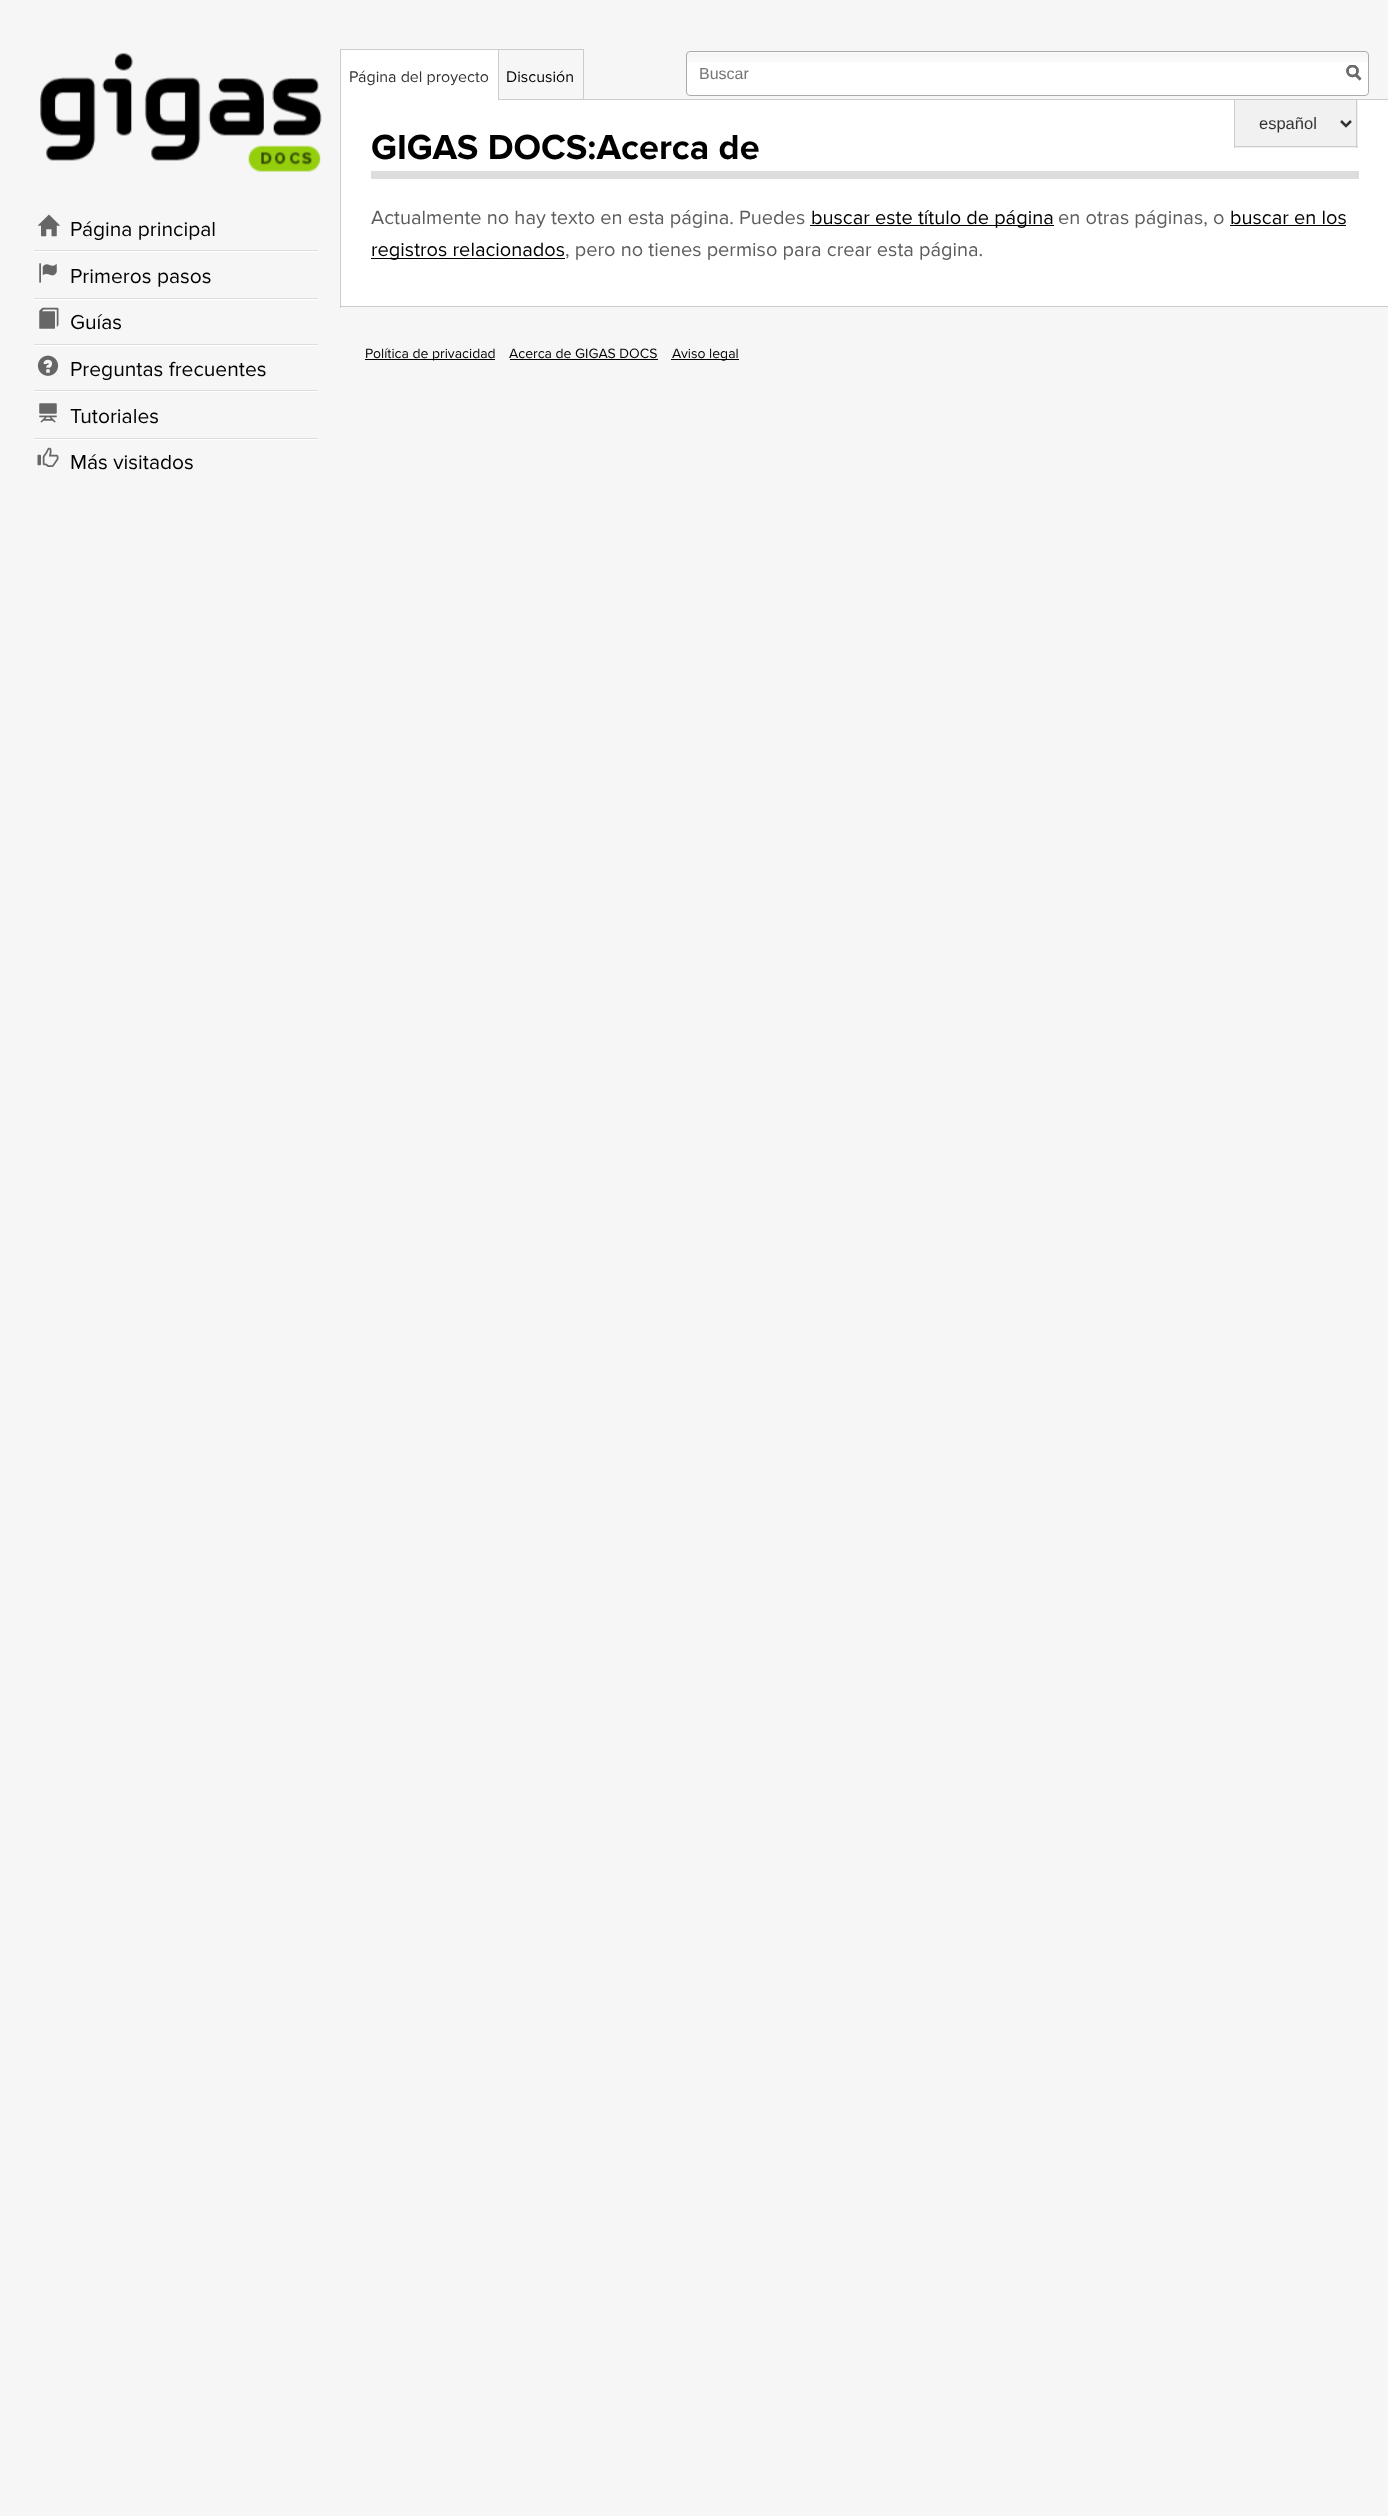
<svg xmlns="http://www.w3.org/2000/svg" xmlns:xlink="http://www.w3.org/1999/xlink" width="1388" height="2516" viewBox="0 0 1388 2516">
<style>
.cls-1{font:16px Proxima Nova;fill:#333333}
.cls-2{font:16px Proxima Nova;fill:#000000}
.cls-3{font:16px Liberation Sans;fill:#757575}
.cls-4{font:21px Proxima Nova;fill:#000000}
.cls-5{font:16.5px Liberation Sans;fill:#333333}
.cls-6{font:bold 36px Proxima Nova;fill:#000000}
.cls-7{font:20px Proxima Nova;fill:#5d5d5d}
.cls-8{font:20px Proxima Nova;fill:#000000}
.cls-9{font:14px Proxima Nova;fill:#000000}
</style>
<defs>
<clipPath id="clip1"><rect x="1346" y="65" width="15" height="16"/></clipPath>
</defs>
<rect width="100%" height="100%" fill="#f6f6f6"/>
<rect fill="#ffffff" x="341" y="50" width="157" height="50"/>
<rect fill="#cccccc" x="340" y="49" width="244" height="1"/>
<rect fill="#cccccc" x="340" y="306" width="1048" height="1"/>
<rect fill="#cccccc" x="340" y="99" width="1" height="209"/>
<rect fill="#cccccc" x="340" y="49" width="1" height="51"/>
<rect fill="#cccccc" x="499" y="99" width="889" height="1"/>
<rect fill="#cccccc" x="583" y="49" width="1" height="51"/>
<rect fill="#cccccc" x="498" y="49" width="1" height="51"/>
<rect fill="#ffffff" x="686" y="51" width="683" height="45" rx="4"/>
<image xlink:href="image0.png" x="686" y="52" width="683" height="11"/>
<rect fill="none" stroke="#aaaaaa" x="686.5" y="51.5" width="682" height="44" rx="3.5"/>
<path fill="none" stroke="#6c6c6c" stroke-width="2.5" d="M1360.5 79.5L1355.5 74.5"/>
<g clip-path="url(#clip1)">
<circle fill="none" stroke="#6c6c6c" stroke-width="2.5" cx="1352.5" cy="71" r="5"/>
</g>
<path fill="none" stroke="#6c6c6c" stroke-width="2.5" d="M1360.5 79.5L1355.5 74.5"/>
<g clip-path="url(#clip1)">
<circle fill="none" stroke="#6c6c6c" stroke-width="2.5" cx="1352.5" cy="71" r="5"/>
</g>
<image xlink:href="image1.png" x="40" y="53" width="282" height="119"/>
<rect fill="#dddddd" x="34" y="250" width="284" height="1"/>
<image xlink:href="image2.png" x="37" y="214" width="23" height="23"/>
<rect fill="#ffffff" x="34" y="251" width="284" height="1"/>
<rect fill="#dddddd" x="34" y="298" width="284" height="1"/>
<image xlink:href="image3.png" x="39" y="263" width="18" height="20"/>
<rect fill="#ffffff" x="34" y="299" width="284" height="1"/>
<rect fill="#dddddd" x="34" y="344" width="284" height="1"/>
<image xlink:href="image4.png" x="39" y="307" width="20" height="22"/>
<rect fill="#ffffff" x="34" y="345" width="284" height="1"/>
<rect fill="#dddddd" x="34" y="390" width="284" height="1"/>
<image xlink:href="image5.png" x="37" y="355" width="22" height="21"/>
<rect fill="#ffffff" x="34" y="391" width="284" height="1"/>
<rect fill="#dddddd" x="34" y="438" width="284" height="1"/>
<image xlink:href="image6.png" x="39" y="403" width="18" height="20"/>
<rect fill="#ffffff" x="34" y="439" width="284" height="1"/>
<image xlink:href="image7.png" x="37" y="447" width="22" height="20"/>
<rect fill="#ffffff" x="341" y="100" width="1047" height="206"/>
<rect fill="#f1f1f1" x="1235" y="100" width="123" height="48"/>
<rect fill="#cccccc" x="1356" y="100" width="1" height="48"/>
<rect fill="#cccccc" x="1234" y="146" width="124" height="1"/>
<rect fill="#cccccc" x="1234" y="100" width="1" height="48"/>
<path fill="none" stroke="#333333" stroke-width="2.5" d="M1341 121L1346 126L1351 121"/>
<rect fill="#dddddd" x="371" y="171" width="988" height="8"/>
<rect fill="#000000" x="810" y="225" width="244" height="1"/>
<rect fill="#000000" x="1230" y="225" width="116" height="1"/>
<rect fill="#000000" x="371" y="258" width="194" height="1"/>
<rect fill="#000000" x="365" y="359" width="130" height="1"/>
<rect fill="#000000" x="510" y="359" width="148" height="1"/>
<rect fill="#000000" x="671" y="359" width="68" height="1"/>
<text class="cls-1" x="349" y="82">Página del proyecto</text>
<text class="cls-2" x="506" y="82">Discusión</text>
<text class="cls-3" x="699" y="79">Buscar</text>
<text class="cls-4" x="70" y="236">Página principal</text>
<text class="cls-4" x="70" y="283">Primeros pasos</text>
<text class="cls-4" x="70" y="329">Guías</text>
<text class="cls-4" x="70" y="376">Preguntas frecuentes</text>
<text class="cls-4" x="70" y="423">Tutoriales</text>
<text class="cls-4" x="70" y="469">Más visitados</text>
<text class="cls-5" x="1259" y="129">español</text>
<text class="cls-6" x="371" y="159">GIGAS DOCS:Acerca de</text>
<text class="cls-7" x="371" y="224">Actualmente no hay texto en esta página. Puedes</text>
<text class="cls-8" x="811" y="224">buscar este título de página</text>
<text class="cls-7" x="1058" y="224">en otras páginas, o</text>
<text class="cls-8" x="1230" y="224">buscar en los</text>
<text class="cls-8" x="371" y="256">registros relacionados</text>
<text class="cls-7" x="565" y="256">, pero no tienes permiso para crear esta página.</text>
<text class="cls-9" x="365" y="358">Política de privacidad</text>
<text class="cls-9" x="509" y="358">Acerca de GIGAS DOCS</text>
<text class="cls-9" x="672" y="358">Aviso legal</text>
</svg>
